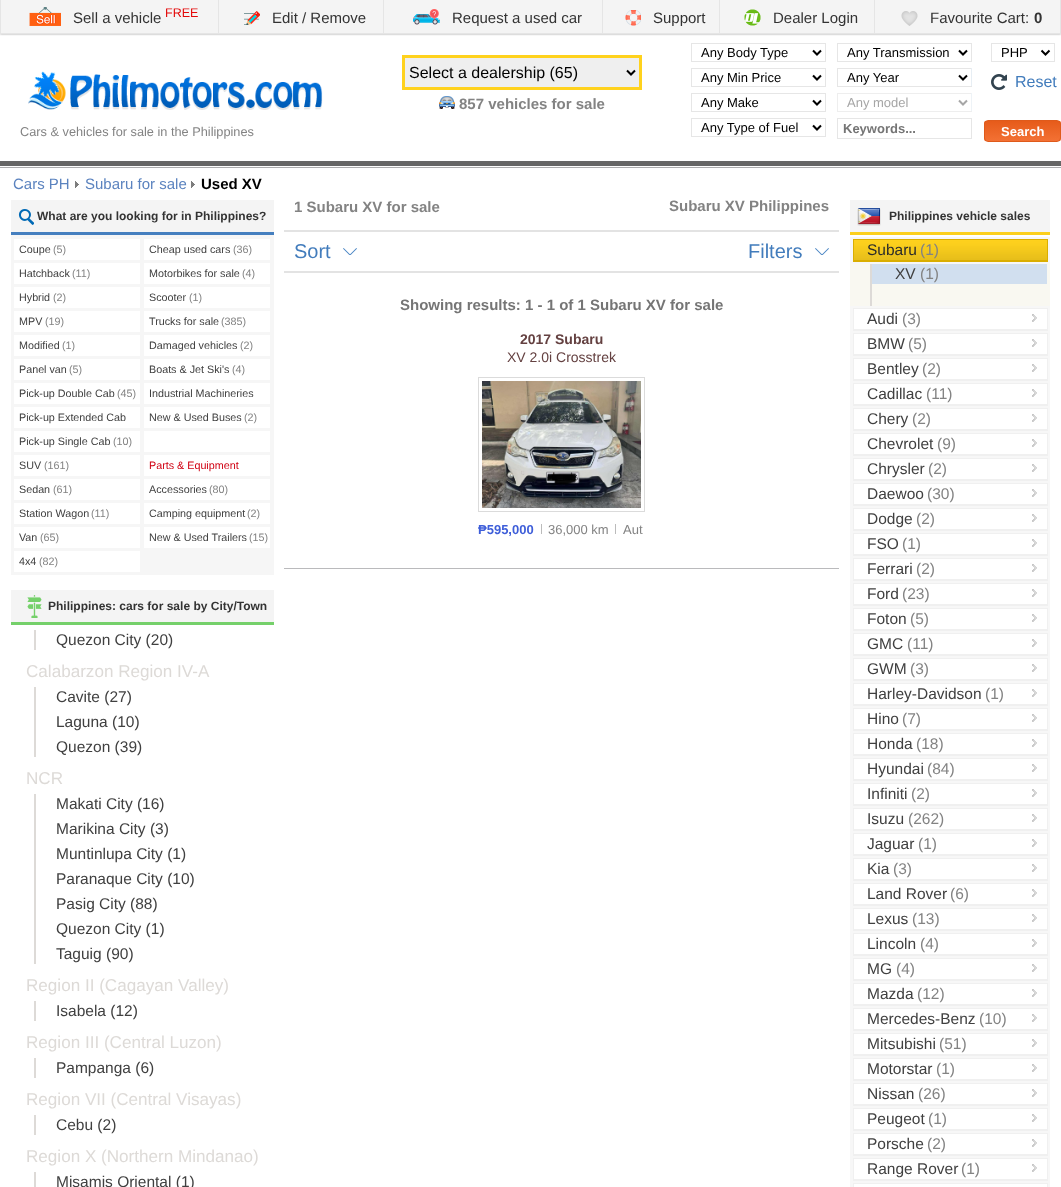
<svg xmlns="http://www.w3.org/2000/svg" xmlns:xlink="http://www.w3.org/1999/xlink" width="1061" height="1187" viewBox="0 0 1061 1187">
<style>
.cls-1{font:15px Liberation Sans;fill:#333333}
.cls-2{font:12.5px Liberation Sans;fill:#e30909}
.cls-3{font:bold 15px Liberation Sans;fill:#333333}
.cls-4{font:16px Liberation Sans;fill:#000000}
.cls-5{font:bold 15px Liberation Sans;fill:#838383}
.cls-6{font:13px Liberation Sans;fill:#000000}
.cls-7{font:13px Liberation Sans;fill:#a6a6a6}
.cls-8{font:bold 13px Liberation Sans;fill:#757575}
.cls-9{font:16px Liberation Sans;fill:#427cbc}
.cls-10{font:bold 13px Liberation Sans;fill:#ffffff}
.cls-11{font:12.75px Liberation Sans;fill:#838383}
.cls-12{font:15px Liberation Sans;fill:#5b83bf}
.cls-13{font:bold 15px Liberation Sans;fill:#000000}
.cls-14{font:bold 12px Liberation Sans;fill:#333333}
.cls-15{font:10.75px Liberation Sans;fill:#404040}
.cls-16{font:10.75px Liberation Sans;fill:#838383}
.cls-17{font:10.75px Liberation Sans;fill:#d00012}
.cls-18{font:15.5px Liberation Sans;fill:#404040}
.cls-19{font:17.1px Liberation Sans;fill:#dddad7}
.cls-20{font:20px Liberation Sans;fill:#427cbc}
.cls-21{font:bold 15px Liberation Sans;fill:#757575}
.cls-22{font:bold 14px Liberation Sans;fill:#644141}
.cls-23{font:14px Liberation Sans;fill:#644141}
.cls-24{font:bold 13px Liberation Sans;fill:#3e5ed9}
.cls-25{font:13px Liberation Sans;fill:#838383}
.cls-26{font:15.5px Liberation Sans;fill:#2b2b2b}
.cls-27{font:15.5px Liberation Sans;fill:#838383}
</style>
<defs>
<clipPath id="clip1"><rect x="984" y="120" width="77" height="22" rx="4"/></clipPath>
<linearGradient id="g1" gradientUnits="userSpaceOnUse" x1="1023" y1="121" x2="1023" y2="141"><stop offset="0" stop-color="#e65b1a"/><stop offset="1" stop-color="#f37134"/></linearGradient>
</defs>
<rect width="100%" height="100%" fill="#ffffff"/>
<rect fill="#999999" filter="blur(1px)" x="0" y="0" width="1061" height="34"/>
<rect fill="#f4f4f4" x="1" y="0" width="1059" height="33"/>
<rect fill="#e5e5e5" x="0" y="33" width="1061" height="1"/>
<rect fill="#e5e5e5" x="0" y="0" width="1" height="33"/>
<image xlink:href="image0.png" x="29" y="7" width="32" height="19"/>
<rect fill="#e5e5e5" x="218" y="0" width="1" height="33"/>
<image xlink:href="image1.png" x="244" y="11" width="16" height="14"/>
<rect fill="#e5e5e5" x="383" y="0" width="1" height="33"/>
<image xlink:href="image2.png" x="413" y="9" width="27" height="16"/>
<rect fill="#e5e5e5" x="602" y="0" width="1" height="33"/>
<image xlink:href="image3.png" x="625" y="10" width="16" height="16"/>
<rect fill="#e5e5e5" x="719" y="0" width="1" height="33"/>
<image xlink:href="image4.png" x="744" y="9" width="17" height="17"/>
<rect fill="#e5e5e5" x="1060" y="0" width="1" height="33"/>
<rect fill="#e5e5e5" x="874" y="0" width="1" height="33"/>
<image xlink:href="image5.png" x="901" y="11" width="17" height="15"/>
<rect fill="#efefef" stroke="#ffd21d" stroke-width="3" x="403.5" y="56.5" width="237" height="32"/>
<path fill="none" stroke="#000000" stroke-width="2" d="M627 70.5L631 74.5L635 70.5"/>
<image xlink:href="image6.png" x="439" y="96" width="16" height="13"/>
<rect fill="none" stroke="#e6e6e6" x="691.5" y="43.5" width="134" height="18"/>
<path fill="none" stroke="#000000" stroke-width="2" d="M813 50.5L817 54.5L821 50.5"/>
<rect fill="none" stroke="#e6e6e6" x="837.5" y="43.5" width="134" height="18"/>
<path fill="none" stroke="#000000" stroke-width="2" d="M959 50.5L963 54.5L967 50.5"/>
<rect fill="none" stroke="#e6e6e6" x="691.5" y="68.5" width="134" height="18"/>
<path fill="none" stroke="#000000" stroke-width="2" d="M813 75.5L817 79.5L821 75.5"/>
<rect fill="#e6e6e6" x="837" y="68" width="135" height="1"/>
<rect fill="#e7eef4" x="971" y="68" width="1" height="19"/>
<rect fill="#e6e6e6" x="837" y="86" width="135" height="1"/>
<rect fill="#e6e6e6" x="837" y="68" width="1" height="19"/>
<path fill="none" stroke="#000000" stroke-width="2" d="M959 75.5L963 79.5L967 75.5"/>
<rect fill="none" stroke="#e6e6e6" x="691.5" y="93.5" width="134" height="18"/>
<path fill="none" stroke="#000000" stroke-width="2" d="M813 100.5L817 104.5L821 100.5"/>
<rect fill="#eeeeee" x="837" y="93" width="135" height="1"/>
<rect fill="#eef3f7" x="971" y="93" width="1" height="19"/>
<rect fill="#eeeeee" x="837" y="111" width="135" height="1"/>
<rect fill="#eeeeee" x="837" y="93" width="1" height="19"/>
<path fill="none" stroke="#a6a6a6" stroke-width="2" d="M959 100.5L963 104.5L967 100.5"/>
<rect fill="none" stroke="#e6e6e6" x="691.5" y="118.5" width="134" height="18"/>
<path fill="none" stroke="#000000" stroke-width="2" d="M813 125.5L817 129.5L821 125.5"/>
<rect fill="none" stroke="#e6e6e6" x="837.5" y="118.5" width="134" height="20"/>
<rect fill="none" stroke="#e6e6e6" x="991.5" y="43.5" width="63" height="18"/>
<path fill="none" stroke="#000000" stroke-width="2" d="M1041.5 50.5L1045.5 54.5L1049.5 50.5"/>
<image xlink:href="image7.png" x="991" y="74" width="16" height="16"/>
<g clip-path="url(#clip1)">
<rect fill="url(#g1)" x="984" y="121" width="77" height="20"/>
</g>
<rect fill="none" stroke="#df5a1b" x="984.5" y="120.5" width="76" height="21" rx="3.5"/>
<image xlink:href="image8.png" x="28" y="71" width="295" height="39"/>
<rect fill="#666666" x="0" y="161" width="1061" height="5"/>
<rect fill="#acacae" x="0" y="167" width="1061" height="1"/>
<image xlink:href="image9.png" x="75" y="181" width="4" height="7"/>
<image xlink:href="image9.png" x="191" y="181" width="4" height="7"/>
<rect fill="#f4f4f4" x="11" y="200" width="263" height="32"/>
<rect fill="#457fbf" x="11" y="232" width="263" height="3"/>
<image xlink:href="image10.png" x="18" y="209" width="16" height="16"/>
<rect fill="#f6f6f6" x="11" y="235" width="263" height="340"/>
<rect fill="#ffffff" x="14" y="239" width="126" height="21"/>
<rect fill="#ffffff" x="144" y="239" width="126" height="21"/>
<rect fill="#ffffff" x="14" y="263" width="126" height="21"/>
<rect fill="#ffffff" x="144" y="263" width="126" height="21"/>
<rect fill="#ffffff" x="14" y="287" width="126" height="21"/>
<rect fill="#ffffff" x="144" y="287" width="126" height="21"/>
<rect fill="#ffffff" x="14" y="311" width="126" height="21"/>
<rect fill="#ffffff" x="144" y="311" width="126" height="21"/>
<rect fill="#ffffff" x="14" y="335" width="126" height="21"/>
<rect fill="#ffffff" x="144" y="335" width="126" height="21"/>
<rect fill="#ffffff" x="14" y="359" width="126" height="21"/>
<rect fill="#ffffff" x="144" y="359" width="126" height="21"/>
<rect fill="#ffffff" x="14" y="383" width="126" height="21"/>
<rect fill="#ffffff" x="144" y="383" width="126" height="21"/>
<rect fill="#ffffff" x="14" y="407" width="126" height="21"/>
<rect fill="#ffffff" x="144" y="407" width="126" height="21"/>
<rect fill="#ffffff" x="14" y="431" width="126" height="21"/>
<rect fill="#ffffff" x="144" y="431" width="126" height="21"/>
<rect fill="#ffffff" x="14" y="455" width="126" height="21"/>
<rect fill="#ffffff" x="144" y="455" width="126" height="21"/>
<rect fill="#ffffff" x="14" y="479" width="126" height="21"/>
<rect fill="#ffffff" x="144" y="479" width="126" height="21"/>
<rect fill="#ffffff" x="14" y="503" width="126" height="21"/>
<rect fill="#ffffff" x="144" y="503" width="126" height="21"/>
<rect fill="#ffffff" x="14" y="527" width="126" height="21"/>
<rect fill="#ffffff" x="144" y="527" width="126" height="21"/>
<rect fill="#ffffff" x="14" y="551" width="126" height="21"/>
<image xlink:href="image11.png" x="11" y="590" width="263" height="35"/>
<image xlink:href="image12.png" x="27" y="595" width="15" height="23"/>
<rect fill="#dddad7" x="34" y="630" width="2" height="20"/>
<rect fill="#dddad7" x="34" y="687" width="2" height="70"/>
<rect fill="#dddad7" x="34" y="794" width="2" height="170"/>
<rect fill="#dddad7" x="34" y="1001" width="2" height="20"/>
<rect fill="#dddad7" x="34" y="1058" width="2" height="20"/>
<rect fill="#dddad7" x="34" y="1115" width="2" height="20"/>
<rect fill="#dddad7" x="34" y="1172" width="2" height="15"/>
<rect fill="#bababc" x="284" y="568" width="555" height="1"/>
<rect fill="#e3e3e3" x="284" y="230" width="555" height="2"/>
<rect fill="#e3e3e3" x="284" y="271" width="555" height="2"/>
<image xlink:href="image13.png" x="343" y="248" width="14" height="7"/>
<image xlink:href="image13.png" x="815" y="248" width="14" height="7"/>
<rect fill="none" stroke="#dbdbdb" x="478.5" y="377.5" width="166" height="134"/>
<image xlink:href="image14.png" x="482" y="381" width="159" height="127"/>
<rect fill="#bbbbbb" x="541" y="524" width="1" height="10"/>
<rect fill="#bbbbbb" x="615" y="524" width="1" height="10"/>
<rect fill="#f4f4f4" x="850" y="200" width="200" height="32"/>
<rect fill="#fbcf1d" x="850" y="232" width="200" height="3"/>
<image xlink:href="image15.png" x="857" y="208" width="24" height="18"/>
<rect fill="#f7f7f7" x="850" y="237" width="200" height="950"/>
<image xlink:href="image16.png" x="854" y="240" width="193" height="20"/>
<rect fill="#daae00" x="853" y="239" width="195" height="1"/>
<rect fill="#daae00" x="1047" y="239" width="1" height="23"/>
<rect fill="#daae00" x="853" y="260" width="195" height="2"/>
<rect fill="#daae00" x="853" y="239" width="1" height="23"/>
<rect fill="#f9f8f1" x="850" y="264" width="200" height="42"/>
<rect fill="#dddad7" x="870" y="264" width="2" height="42"/>
<rect fill="#d1dfef" x="872" y="264" width="175" height="20"/>
<rect fill="#ffffff" x="854" y="309" width="193" height="20"/>
<image xlink:href="image17.png" x="1032" y="314" width="5" height="8"/>
<rect fill="#f0f0f0" x="853" y="308" width="195" height="1"/>
<rect fill="#f0f0f0" x="1047" y="308" width="1" height="23"/>
<rect fill="#f0f0f0" x="853" y="329" width="195" height="2"/>
<rect fill="#f0f0f0" x="853" y="308" width="1" height="23"/>
<rect fill="#ffffff" x="854" y="334" width="193" height="20"/>
<image xlink:href="image17.png" x="1032" y="339" width="5" height="8"/>
<rect fill="#f0f0f0" x="853" y="333" width="195" height="1"/>
<rect fill="#f0f0f0" x="1047" y="333" width="1" height="23"/>
<rect fill="#f0f0f0" x="853" y="354" width="195" height="2"/>
<rect fill="#f0f0f0" x="853" y="333" width="1" height="23"/>
<rect fill="#ffffff" x="854" y="359" width="193" height="20"/>
<image xlink:href="image17.png" x="1032" y="364" width="5" height="8"/>
<rect fill="#f0f0f0" x="853" y="358" width="195" height="1"/>
<rect fill="#f0f0f0" x="1047" y="358" width="1" height="23"/>
<rect fill="#f0f0f0" x="853" y="379" width="195" height="2"/>
<rect fill="#f0f0f0" x="853" y="358" width="1" height="23"/>
<rect fill="#ffffff" x="854" y="384" width="193" height="20"/>
<image xlink:href="image17.png" x="1032" y="389" width="5" height="8"/>
<rect fill="#f0f0f0" x="853" y="383" width="195" height="1"/>
<rect fill="#f0f0f0" x="1047" y="383" width="1" height="23"/>
<rect fill="#f0f0f0" x="853" y="404" width="195" height="2"/>
<rect fill="#f0f0f0" x="853" y="383" width="1" height="23"/>
<rect fill="#ffffff" x="854" y="409" width="193" height="20"/>
<image xlink:href="image17.png" x="1032" y="414" width="5" height="8"/>
<rect fill="#f0f0f0" x="853" y="408" width="195" height="1"/>
<rect fill="#f0f0f0" x="1047" y="408" width="1" height="23"/>
<rect fill="#f0f0f0" x="853" y="429" width="195" height="2"/>
<rect fill="#f0f0f0" x="853" y="408" width="1" height="23"/>
<rect fill="#ffffff" x="854" y="434" width="193" height="20"/>
<image xlink:href="image17.png" x="1032" y="439" width="5" height="8"/>
<rect fill="#f0f0f0" x="853" y="433" width="195" height="1"/>
<rect fill="#f0f0f0" x="1047" y="433" width="1" height="23"/>
<rect fill="#f0f0f0" x="853" y="454" width="195" height="2"/>
<rect fill="#f0f0f0" x="853" y="433" width="1" height="23"/>
<rect fill="#ffffff" x="854" y="459" width="193" height="20"/>
<image xlink:href="image17.png" x="1032" y="464" width="5" height="8"/>
<rect fill="#f0f0f0" x="853" y="458" width="195" height="1"/>
<rect fill="#f0f0f0" x="1047" y="458" width="1" height="23"/>
<rect fill="#f0f0f0" x="853" y="479" width="195" height="2"/>
<rect fill="#f0f0f0" x="853" y="458" width="1" height="23"/>
<rect fill="#ffffff" x="854" y="484" width="193" height="20"/>
<image xlink:href="image17.png" x="1032" y="489" width="5" height="8"/>
<rect fill="#f0f0f0" x="853" y="483" width="195" height="1"/>
<rect fill="#f0f0f0" x="1047" y="483" width="1" height="23"/>
<rect fill="#f0f0f0" x="853" y="504" width="195" height="2"/>
<rect fill="#f0f0f0" x="853" y="483" width="1" height="23"/>
<rect fill="#ffffff" x="854" y="509" width="193" height="20"/>
<image xlink:href="image17.png" x="1032" y="514" width="5" height="8"/>
<rect fill="#f0f0f0" x="853" y="508" width="195" height="1"/>
<rect fill="#f0f0f0" x="1047" y="508" width="1" height="23"/>
<rect fill="#f0f0f0" x="853" y="529" width="195" height="2"/>
<rect fill="#f0f0f0" x="853" y="508" width="1" height="23"/>
<rect fill="#ffffff" x="854" y="534" width="193" height="20"/>
<image xlink:href="image17.png" x="1032" y="539" width="5" height="8"/>
<rect fill="#f0f0f0" x="853" y="533" width="195" height="1"/>
<rect fill="#f0f0f0" x="1047" y="533" width="1" height="23"/>
<rect fill="#f0f0f0" x="853" y="554" width="195" height="2"/>
<rect fill="#f0f0f0" x="853" y="533" width="1" height="23"/>
<rect fill="#ffffff" x="854" y="559" width="193" height="20"/>
<image xlink:href="image17.png" x="1032" y="564" width="5" height="8"/>
<rect fill="#f0f0f0" x="853" y="558" width="195" height="1"/>
<rect fill="#f0f0f0" x="1047" y="558" width="1" height="23"/>
<rect fill="#f0f0f0" x="853" y="579" width="195" height="2"/>
<rect fill="#f0f0f0" x="853" y="558" width="1" height="23"/>
<rect fill="#ffffff" x="854" y="584" width="193" height="20"/>
<image xlink:href="image17.png" x="1032" y="589" width="5" height="8"/>
<rect fill="#f0f0f0" x="853" y="583" width="195" height="1"/>
<rect fill="#f0f0f0" x="1047" y="583" width="1" height="23"/>
<rect fill="#f0f0f0" x="853" y="604" width="195" height="2"/>
<rect fill="#f0f0f0" x="853" y="583" width="1" height="23"/>
<rect fill="#ffffff" x="854" y="609" width="193" height="20"/>
<image xlink:href="image17.png" x="1032" y="614" width="5" height="8"/>
<rect fill="#f0f0f0" x="853" y="608" width="195" height="1"/>
<rect fill="#f0f0f0" x="1047" y="608" width="1" height="23"/>
<rect fill="#f0f0f0" x="853" y="629" width="195" height="2"/>
<rect fill="#f0f0f0" x="853" y="608" width="1" height="23"/>
<rect fill="#ffffff" x="854" y="634" width="193" height="20"/>
<image xlink:href="image17.png" x="1032" y="639" width="5" height="8"/>
<rect fill="#f0f0f0" x="853" y="633" width="195" height="1"/>
<rect fill="#f0f0f0" x="1047" y="633" width="1" height="23"/>
<rect fill="#f0f0f0" x="853" y="654" width="195" height="2"/>
<rect fill="#f0f0f0" x="853" y="633" width="1" height="23"/>
<rect fill="#ffffff" x="854" y="659" width="193" height="20"/>
<image xlink:href="image17.png" x="1032" y="664" width="5" height="8"/>
<rect fill="#f0f0f0" x="853" y="658" width="195" height="1"/>
<rect fill="#f0f0f0" x="1047" y="658" width="1" height="23"/>
<rect fill="#f0f0f0" x="853" y="679" width="195" height="2"/>
<rect fill="#f0f0f0" x="853" y="658" width="1" height="23"/>
<rect fill="#ffffff" x="854" y="684" width="193" height="20"/>
<image xlink:href="image17.png" x="1032" y="689" width="5" height="8"/>
<rect fill="#f0f0f0" x="853" y="683" width="195" height="1"/>
<rect fill="#f0f0f0" x="1047" y="683" width="1" height="23"/>
<rect fill="#f0f0f0" x="853" y="704" width="195" height="2"/>
<rect fill="#f0f0f0" x="853" y="683" width="1" height="23"/>
<rect fill="#ffffff" x="854" y="709" width="193" height="20"/>
<image xlink:href="image17.png" x="1032" y="714" width="5" height="8"/>
<rect fill="#f0f0f0" x="853" y="708" width="195" height="1"/>
<rect fill="#f0f0f0" x="1047" y="708" width="1" height="23"/>
<rect fill="#f0f0f0" x="853" y="729" width="195" height="2"/>
<rect fill="#f0f0f0" x="853" y="708" width="1" height="23"/>
<rect fill="#ffffff" x="854" y="734" width="193" height="20"/>
<image xlink:href="image17.png" x="1032" y="739" width="5" height="8"/>
<rect fill="#f0f0f0" x="853" y="733" width="195" height="1"/>
<rect fill="#f0f0f0" x="1047" y="733" width="1" height="23"/>
<rect fill="#f0f0f0" x="853" y="754" width="195" height="2"/>
<rect fill="#f0f0f0" x="853" y="733" width="1" height="23"/>
<rect fill="#ffffff" x="854" y="759" width="193" height="20"/>
<image xlink:href="image17.png" x="1032" y="764" width="5" height="8"/>
<rect fill="#f0f0f0" x="853" y="758" width="195" height="1"/>
<rect fill="#f0f0f0" x="1047" y="758" width="1" height="23"/>
<rect fill="#f0f0f0" x="853" y="779" width="195" height="2"/>
<rect fill="#f0f0f0" x="853" y="758" width="1" height="23"/>
<rect fill="#ffffff" x="854" y="784" width="193" height="20"/>
<image xlink:href="image17.png" x="1032" y="789" width="5" height="8"/>
<rect fill="#f0f0f0" x="853" y="783" width="195" height="1"/>
<rect fill="#f0f0f0" x="1047" y="783" width="1" height="23"/>
<rect fill="#f0f0f0" x="853" y="804" width="195" height="2"/>
<rect fill="#f0f0f0" x="853" y="783" width="1" height="23"/>
<rect fill="#ffffff" x="854" y="809" width="193" height="20"/>
<image xlink:href="image17.png" x="1032" y="814" width="5" height="8"/>
<rect fill="#f0f0f0" x="853" y="808" width="195" height="1"/>
<rect fill="#f0f0f0" x="1047" y="808" width="1" height="23"/>
<rect fill="#f0f0f0" x="853" y="829" width="195" height="2"/>
<rect fill="#f0f0f0" x="853" y="808" width="1" height="23"/>
<rect fill="#ffffff" x="854" y="834" width="193" height="20"/>
<image xlink:href="image17.png" x="1032" y="839" width="5" height="8"/>
<rect fill="#f0f0f0" x="853" y="833" width="195" height="1"/>
<rect fill="#f0f0f0" x="1047" y="833" width="1" height="23"/>
<rect fill="#f0f0f0" x="853" y="854" width="195" height="2"/>
<rect fill="#f0f0f0" x="853" y="833" width="1" height="23"/>
<rect fill="#ffffff" x="854" y="859" width="193" height="20"/>
<image xlink:href="image17.png" x="1032" y="864" width="5" height="8"/>
<rect fill="#f0f0f0" x="853" y="858" width="195" height="1"/>
<rect fill="#f0f0f0" x="1047" y="858" width="1" height="23"/>
<rect fill="#f0f0f0" x="853" y="879" width="195" height="2"/>
<rect fill="#f0f0f0" x="853" y="858" width="1" height="23"/>
<rect fill="#ffffff" x="854" y="884" width="193" height="20"/>
<image xlink:href="image17.png" x="1032" y="889" width="5" height="8"/>
<rect fill="#f0f0f0" x="853" y="883" width="195" height="1"/>
<rect fill="#f0f0f0" x="1047" y="883" width="1" height="23"/>
<rect fill="#f0f0f0" x="853" y="904" width="195" height="2"/>
<rect fill="#f0f0f0" x="853" y="883" width="1" height="23"/>
<rect fill="#ffffff" x="854" y="909" width="193" height="20"/>
<image xlink:href="image17.png" x="1032" y="914" width="5" height="8"/>
<rect fill="#f0f0f0" x="853" y="908" width="195" height="1"/>
<rect fill="#f0f0f0" x="1047" y="908" width="1" height="23"/>
<rect fill="#f0f0f0" x="853" y="929" width="195" height="2"/>
<rect fill="#f0f0f0" x="853" y="908" width="1" height="23"/>
<rect fill="#ffffff" x="854" y="934" width="193" height="20"/>
<image xlink:href="image17.png" x="1032" y="939" width="5" height="8"/>
<rect fill="#f0f0f0" x="853" y="933" width="195" height="1"/>
<rect fill="#f0f0f0" x="1047" y="933" width="1" height="23"/>
<rect fill="#f0f0f0" x="853" y="954" width="195" height="2"/>
<rect fill="#f0f0f0" x="853" y="933" width="1" height="23"/>
<rect fill="#ffffff" x="854" y="959" width="193" height="20"/>
<image xlink:href="image17.png" x="1032" y="964" width="5" height="8"/>
<rect fill="#f0f0f0" x="853" y="958" width="195" height="1"/>
<rect fill="#f0f0f0" x="1047" y="958" width="1" height="23"/>
<rect fill="#f0f0f0" x="853" y="979" width="195" height="2"/>
<rect fill="#f0f0f0" x="853" y="958" width="1" height="23"/>
<rect fill="#ffffff" x="854" y="984" width="193" height="20"/>
<image xlink:href="image17.png" x="1032" y="989" width="5" height="8"/>
<rect fill="#f0f0f0" x="853" y="983" width="195" height="1"/>
<rect fill="#f0f0f0" x="1047" y="983" width="1" height="23"/>
<rect fill="#f0f0f0" x="853" y="1004" width="195" height="2"/>
<rect fill="#f0f0f0" x="853" y="983" width="1" height="23"/>
<rect fill="#ffffff" x="854" y="1009" width="193" height="20"/>
<image xlink:href="image17.png" x="1032" y="1014" width="5" height="8"/>
<rect fill="#f0f0f0" x="853" y="1008" width="195" height="1"/>
<rect fill="#f0f0f0" x="1047" y="1008" width="1" height="23"/>
<rect fill="#f0f0f0" x="853" y="1029" width="195" height="2"/>
<rect fill="#f0f0f0" x="853" y="1008" width="1" height="23"/>
<rect fill="#ffffff" x="854" y="1034" width="193" height="20"/>
<image xlink:href="image17.png" x="1032" y="1039" width="5" height="8"/>
<rect fill="#f0f0f0" x="853" y="1033" width="195" height="1"/>
<rect fill="#f0f0f0" x="1047" y="1033" width="1" height="23"/>
<rect fill="#f0f0f0" x="853" y="1054" width="195" height="2"/>
<rect fill="#f0f0f0" x="853" y="1033" width="1" height="23"/>
<rect fill="#ffffff" x="854" y="1059" width="193" height="20"/>
<image xlink:href="image17.png" x="1032" y="1064" width="5" height="8"/>
<rect fill="#f0f0f0" x="853" y="1058" width="195" height="1"/>
<rect fill="#f0f0f0" x="1047" y="1058" width="1" height="23"/>
<rect fill="#f0f0f0" x="853" y="1079" width="195" height="2"/>
<rect fill="#f0f0f0" x="853" y="1058" width="1" height="23"/>
<rect fill="#ffffff" x="854" y="1084" width="193" height="20"/>
<image xlink:href="image17.png" x="1032" y="1089" width="5" height="8"/>
<rect fill="#f0f0f0" x="853" y="1083" width="195" height="1"/>
<rect fill="#f0f0f0" x="1047" y="1083" width="1" height="23"/>
<rect fill="#f0f0f0" x="853" y="1104" width="195" height="2"/>
<rect fill="#f0f0f0" x="853" y="1083" width="1" height="23"/>
<rect fill="#ffffff" x="854" y="1109" width="193" height="20"/>
<image xlink:href="image17.png" x="1032" y="1114" width="5" height="8"/>
<rect fill="#f0f0f0" x="853" y="1108" width="195" height="1"/>
<rect fill="#f0f0f0" x="1047" y="1108" width="1" height="23"/>
<rect fill="#f0f0f0" x="853" y="1129" width="195" height="2"/>
<rect fill="#f0f0f0" x="853" y="1108" width="1" height="23"/>
<rect fill="#ffffff" x="854" y="1134" width="193" height="20"/>
<image xlink:href="image17.png" x="1032" y="1139" width="5" height="8"/>
<rect fill="#f0f0f0" x="853" y="1133" width="195" height="1"/>
<rect fill="#f0f0f0" x="1047" y="1133" width="1" height="23"/>
<rect fill="#f0f0f0" x="853" y="1154" width="195" height="2"/>
<rect fill="#f0f0f0" x="853" y="1133" width="1" height="23"/>
<rect fill="#ffffff" x="854" y="1159" width="193" height="20"/>
<image xlink:href="image17.png" x="1032" y="1164" width="5" height="8"/>
<rect fill="#f0f0f0" x="853" y="1158" width="195" height="1"/>
<rect fill="#f0f0f0" x="1047" y="1158" width="1" height="23"/>
<rect fill="#f0f0f0" x="853" y="1179" width="195" height="2"/>
<rect fill="#f0f0f0" x="853" y="1158" width="1" height="23"/>
<rect fill="#ffffff" x="854" y="1184" width="193" height="3"/>
<rect fill="#f0f0f0" x="853" y="1183" width="195" height="1"/>
<rect fill="#f0f0f0" x="1047" y="1183" width="1" height="4"/>
<rect fill="#f0f0f0" x="853" y="1183" width="1" height="4"/>
<text class="cls-1" x="73" y="23">Sell a vehicle</text>
<text class="cls-2" x="165" y="17">FREE</text>
<text class="cls-1" x="272" y="23">Edit / Remove</text>
<text class="cls-1" x="452" y="23">Request a used car</text>
<text class="cls-1" x="653" y="23">Support</text>
<text class="cls-1" x="773" y="23">Dealer Login</text>
<text class="cls-1" x="930" y="23">Favourite Cart:</text>
<text class="cls-3" x="1034" y="23">0</text>
<text class="cls-4" x="409" y="78">Select a dealership (65)</text>
<text class="cls-5" x="459" y="109">857 vehicles for sale</text>
<text class="cls-6" x="701" y="57">Any Body Type</text>
<text class="cls-6" x="847" y="57">Any Transmission</text>
<text class="cls-6" x="701" y="82">Any Min Price</text>
<text class="cls-6" x="847" y="82">Any Year</text>
<text class="cls-6" x="701" y="107">Any Make</text>
<text class="cls-7" x="847" y="107">Any model</text>
<text class="cls-6" x="701" y="132">Any Type of Fuel</text>
<text class="cls-8" x="843" y="133">Keywords...</text>
<text class="cls-6" x="1001" y="57">PHP</text>
<text class="cls-9" x="1015" y="87">Reset</text>
<text class="cls-10" x="1001" y="136">Search</text>
<text class="cls-11" x="20" y="136">Cars &amp; vehicles for sale in the Philippines</text>
<text class="cls-12" x="13" y="189">Cars PH</text>
<text class="cls-12" x="85" y="189">Subaru for sale</text>
<text class="cls-13" x="201" y="189">Used XV</text>
<text class="cls-14" x="37" y="220">What are you looking for in Philippines?</text>
<text class="cls-15" x="19" y="253">Coupe</text>
<text class="cls-16" x="53" y="253">(5)</text>
<text class="cls-15" x="149" y="253">Cheap used cars</text>
<text class="cls-16" x="233" y="253">(36)</text>
<text class="cls-15" x="19" y="277">Hatchback</text>
<text class="cls-16" x="72" y="277">(11)</text>
<text class="cls-15" x="149" y="277">Motorbikes for sale</text>
<text class="cls-16" x="242" y="277">(4)</text>
<text class="cls-15" x="19" y="301">Hybrid</text>
<text class="cls-16" x="53" y="301">(2)</text>
<text class="cls-15" x="149" y="301">Scooter</text>
<text class="cls-16" x="189" y="301">(1)</text>
<text class="cls-15" x="19" y="325">MPV</text>
<text class="cls-16" x="45" y="325">(19)</text>
<text class="cls-15" x="149" y="325">Trucks for sale</text>
<text class="cls-16" x="221" y="325">(385)</text>
<text class="cls-15" x="19" y="349">Modified</text>
<text class="cls-16" x="62" y="349">(1)</text>
<text class="cls-15" x="149" y="349">Damaged vehicles</text>
<text class="cls-16" x="240" y="349">(2)</text>
<text class="cls-15" x="19" y="373">Panel van</text>
<text class="cls-16" x="69" y="373">(5)</text>
<text class="cls-15" x="149" y="373">Boats &amp; Jet Ski's</text>
<text class="cls-16" x="232" y="373">(4)</text>
<text class="cls-15" x="19" y="397">Pick-up Double Cab</text>
<text class="cls-16" x="117" y="397">(45)</text>
<text class="cls-15" x="149" y="397">Industrial Machineries</text>
<text class="cls-15" x="19" y="421">Pick-up Extended Cab</text>
<text class="cls-15" x="149" y="421">New &amp; Used Buses</text>
<text class="cls-16" x="244" y="421">(2)</text>
<text class="cls-15" x="19" y="445">Pick-up Single Cab</text>
<text class="cls-16" x="113" y="445">(10)</text>
<text class="cls-15" x="19" y="469">SUV</text>
<text class="cls-16" x="44" y="469">(161)</text>
<text class="cls-17" x="149" y="469">Parts &amp; Equipment</text>
<text class="cls-15" x="19" y="493">Sedan</text>
<text class="cls-16" x="53" y="493">(61)</text>
<text class="cls-15" x="149" y="493">Accessories</text>
<text class="cls-16" x="209" y="493">(80)</text>
<text class="cls-15" x="19" y="517">Station Wagon</text>
<text class="cls-16" x="91" y="517">(11)</text>
<text class="cls-15" x="149" y="517">Camping equipment</text>
<text class="cls-16" x="247" y="517">(2)</text>
<text class="cls-15" x="19" y="541">Van</text>
<text class="cls-16" x="40" y="541">(65)</text>
<text class="cls-15" x="149" y="541">New &amp; Used Trailers</text>
<text class="cls-16" x="249" y="541">(15)</text>
<text class="cls-15" x="19" y="565">4x4</text>
<text class="cls-16" x="39" y="565">(82)</text>
<text class="cls-14" x="48" y="610">Philippines: cars for sale by City/Town</text>
<text class="cls-18" x="56" y="645">Quezon City (20)</text>
<text class="cls-19" x="26" y="677">Calabarzon Region IV-A</text>
<text class="cls-18"><tspan x="56" y="702">Cavite (27)</tspan><tspan x="56" y="727">Laguna (10)</tspan><tspan x="56" y="752">Quezon (39)</tspan></text>
<text class="cls-19" x="26" y="784">NCR</text>
<text class="cls-18"><tspan x="56" y="809">Makati City (16)</tspan><tspan x="56" y="834">Marikina City (3)</tspan><tspan x="56" y="859">Muntinlupa City (1)</tspan><tspan x="56" y="884">Paranaque City (10)</tspan><tspan x="56" y="909">Pasig City (88)</tspan><tspan x="56" y="934">Quezon City (1)</tspan><tspan x="56" y="959">Taguig (90)</tspan></text>
<text class="cls-19" x="26" y="991">Region II (Cagayan Valley)</text>
<text class="cls-18" x="56" y="1016">Isabela (12)</text>
<text class="cls-19" x="26" y="1048">Region III (Central Luzon)</text>
<text class="cls-18" x="56" y="1073">Pampanga (6)</text>
<text class="cls-19" x="26" y="1105">Region VII (Central Visayas)</text>
<text class="cls-18" x="56" y="1130">Cebu (2)</text>
<text class="cls-19" x="26" y="1162">Region X (Northern Mindanao)</text>
<text class="cls-18" x="56" y="1187">Misamis Oriental (1)</text>
<text class="cls-5" x="294" y="212">1 Subaru XV for sale</text>
<text class="cls-5" x="669" y="211">Subaru XV Philippines</text>
<text class="cls-20" x="294" y="258">Sort</text>
<text class="cls-20" x="748" y="258">Filters</text>
<text class="cls-21" x="400" y="310">Showing results: 1 - 1 of 1 Subaru XV for sale</text>
<text class="cls-22" x="520" y="344">2017 Subaru</text>
<text class="cls-23" x="507" y="362">XV 2.0i Crosstrek</text>
<text class="cls-24" x="478" y="534">₱595,000</text>
<text class="cls-25" x="548" y="534">36,000 km</text>
<text class="cls-25" x="623" y="534">Aut</text>
<text class="cls-14" x="889" y="220">Philippines vehicle sales</text>
<text class="cls-26" x="867" y="255">Subaru</text>
<text class="cls-27" x="920" y="255">(1)</text>
<text class="cls-18" x="895" y="279">XV</text>
<text class="cls-27" x="920" y="279">(1)</text>
<text class="cls-18" x="867" y="324">Audi</text>
<text class="cls-27" x="902" y="324">(3)</text>
<text class="cls-18" x="867" y="349">BMW</text>
<text class="cls-27" x="908" y="349">(5)</text>
<text class="cls-18" x="867" y="374">Bentley</text>
<text class="cls-27" x="922" y="374">(2)</text>
<text class="cls-18" x="867" y="399">Cadillac</text>
<text class="cls-27" x="926" y="399">(11)</text>
<text class="cls-18" x="867" y="424">Chery</text>
<text class="cls-27" x="912" y="424">(2)</text>
<text class="cls-18" x="867" y="449">Chevrolet</text>
<text class="cls-27" x="937" y="449">(9)</text>
<text class="cls-18" x="867" y="474">Chrysler</text>
<text class="cls-27" x="928" y="474">(2)</text>
<text class="cls-18" x="867" y="499">Daewoo</text>
<text class="cls-27" x="927" y="499">(30)</text>
<text class="cls-18" x="867" y="524">Dodge</text>
<text class="cls-27" x="916" y="524">(2)</text>
<text class="cls-18" x="867" y="549">FSO</text>
<text class="cls-27" x="902" y="549">(1)</text>
<text class="cls-18" x="867" y="574">Ferrari</text>
<text class="cls-27" x="916" y="574">(2)</text>
<text class="cls-18" x="867" y="599">Ford</text>
<text class="cls-27" x="902" y="599">(23)</text>
<text class="cls-18" x="867" y="624">Foton</text>
<text class="cls-27" x="910" y="624">(5)</text>
<text class="cls-18" x="867" y="649">GMC</text>
<text class="cls-27" x="907" y="649">(11)</text>
<text class="cls-18" x="867" y="674">GWM</text>
<text class="cls-27" x="910" y="674">(3)</text>
<text class="cls-18" x="867" y="699">Harley-Davidson</text>
<text class="cls-27" x="985" y="699">(1)</text>
<text class="cls-18" x="867" y="724">Hino</text>
<text class="cls-27" x="902" y="724">(7)</text>
<text class="cls-18" x="867" y="749">Honda</text>
<text class="cls-27" x="916" y="749">(18)</text>
<text class="cls-18" x="867" y="774">Hyundai</text>
<text class="cls-27" x="927" y="774">(84)</text>
<text class="cls-18" x="867" y="799">Infiniti</text>
<text class="cls-27" x="911" y="799">(2)</text>
<text class="cls-18" x="867" y="824">Isuzu</text>
<text class="cls-27" x="908" y="824">(262)</text>
<text class="cls-18" x="867" y="849">Jaguar</text>
<text class="cls-27" x="918" y="849">(1)</text>
<text class="cls-18" x="867" y="874">Kia</text>
<text class="cls-27" x="893" y="874">(3)</text>
<text class="cls-18" x="867" y="899">Land Rover</text>
<text class="cls-27" x="950" y="899">(6)</text>
<text class="cls-18" x="867" y="924">Lexus</text>
<text class="cls-27" x="912" y="924">(13)</text>
<text class="cls-18" x="867" y="949">Lincoln</text>
<text class="cls-27" x="920" y="949">(4)</text>
<text class="cls-18" x="867" y="974">MG</text>
<text class="cls-27" x="896" y="974">(4)</text>
<text class="cls-18" x="867" y="999">Mazda</text>
<text class="cls-27" x="917" y="999">(12)</text>
<text class="cls-18" x="867" y="1024">Mercedes-Benz</text>
<text class="cls-27" x="979" y="1024">(10)</text>
<text class="cls-18" x="867" y="1049">Mitsubishi</text>
<text class="cls-27" x="939" y="1049">(51)</text>
<text class="cls-18" x="867" y="1074">Motorstar</text>
<text class="cls-27" x="936" y="1074">(1)</text>
<text class="cls-18" x="867" y="1099">Nissan</text>
<text class="cls-27" x="918" y="1099">(26)</text>
<text class="cls-18" x="867" y="1124">Peugeot</text>
<text class="cls-27" x="928" y="1124">(1)</text>
<text class="cls-18" x="867" y="1149">Porsche</text>
<text class="cls-27" x="927" y="1149">(2)</text>
<text class="cls-18" x="867" y="1174">Range Rover</text>
<text class="cls-27" x="961" y="1174">(1)</text>
</svg>
